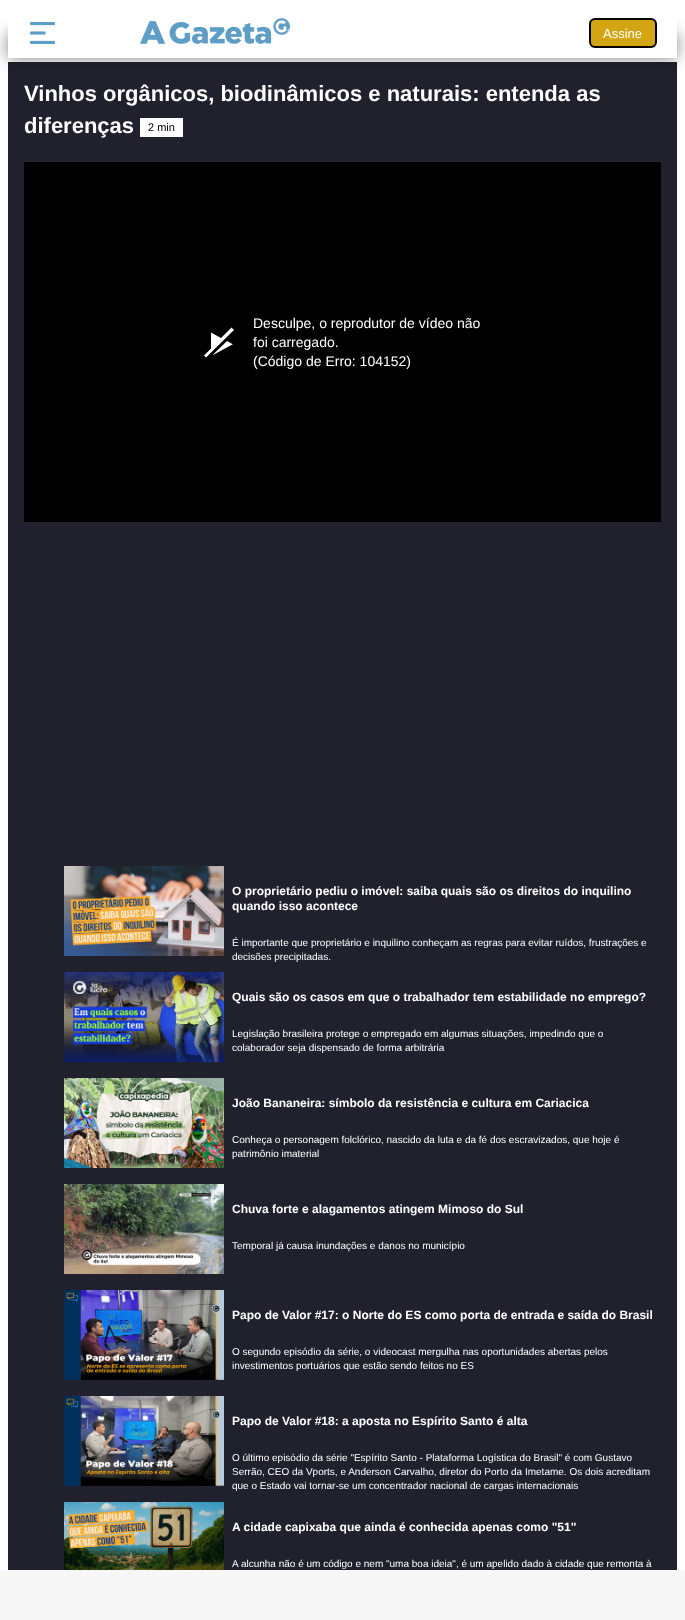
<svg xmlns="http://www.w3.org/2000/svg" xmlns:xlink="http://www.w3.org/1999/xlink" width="685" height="1620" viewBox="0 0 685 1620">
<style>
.cls-1{font:13px Liberation Sans;fill:#ffffff}
.cls-2{font:bold 22px Liberation Sans;fill:#ffffff}
.cls-3{font:11px Liberation Sans;fill:#000000}
.cls-4{font:14px Liberation Sans;fill:#ffffff}
.cls-5{font:bold 12px Liberation Sans;fill:#ffffff}
.cls-6{font:10px Liberation Sans;fill:#ffffff}
</style>
<rect width="100%" height="100%" fill="#ffffff"/>
<rect fill="#20212d" x="8" y="62" width="669" height="1508"/>
<rect fill="#000000" fill-opacity="0.5" filter="blur(8px)" x="8" y="33" width="669" height="25"/>
<rect fill="#ffffff" x="8" y="17" width="669" height="41"/>
<image xlink:href="image0.png" x="30" y="22" width="25" height="22"/>
<image xlink:href="image1.png" x="140" y="18" width="150" height="26"/>
<rect fill="#d3a512" stroke="#000000" stroke-width="2" x="590" y="19" width="66" height="28" rx="5"/>
<rect fill="#ffffff" x="140" y="118" width="43" height="19"/>
<rect fill="#000000" x="24" y="162" width="637" height="360"/>
<path fill="#ffffff" d="M232.5 344.5L212 355.5L227 341C232.5 344 233.5 344.5 232.5 344.5ZM231.5 327.5L221 338L211 332.5V348.5L204 355.5L206 357.5L234 330Z"/>
<image xlink:href="image2.png" x="64" y="866" width="160" height="90"/>
<image xlink:href="image3.png" x="64" y="972" width="160" height="90"/>
<image xlink:href="image4.png" x="64" y="1078" width="160" height="90"/>
<image xlink:href="image5.png" x="64" y="1184" width="160" height="90"/>
<image xlink:href="image6.png" x="64" y="1290" width="160" height="90"/>
<image xlink:href="image7.png" x="64" y="1396" width="160" height="90"/>
<image xlink:href="image8.png" x="64" y="1502" width="160" height="68"/>
<rect fill="#f7f7f7" x="0" y="1570" width="685" height="50"/>
<text class="cls-1" x="603" y="38">Assine</text>
<text class="cls-2"><tspan x="24" y="101">Vinhos orgânicos, biodinâmicos e naturais: entenda as</tspan><tspan x="24" y="133">diferenças</tspan></text>
<text class="cls-3" x="148" y="131">2 min</text>
<text class="cls-4"><tspan x="253" y="328">Desculpe, o reprodutor de vídeo não</tspan><tspan x="253" y="347">foi carregado.</tspan><tspan x="253" y="366">(Código de Erro: 104152)</tspan></text>
<text class="cls-5"><tspan x="232" y="895">O proprietário pediu o imóvel: saiba quais são os direitos do inquilino</tspan><tspan x="232" y="910">quando isso acontece</tspan></text>
<text class="cls-6"><tspan x="232" y="946">É importante que proprietário e inquilino conheçam as regras para evitar ruídos, frustrações e</tspan><tspan x="232" y="960">decisões precipitadas.</tspan></text>
<text class="cls-5" x="232" y="1001">Quais são os casos em que o trabalhador tem estabilidade no emprego?</text>
<text class="cls-6"><tspan x="232" y="1037">Legislação brasileira protege o empregado em algumas situações, impedindo que o</tspan><tspan x="232" y="1051">colaborador seja dispensado de forma arbitrária</tspan></text>
<text class="cls-5" x="232" y="1107">João Bananeira: símbolo da resistência e cultura em Cariacica</text>
<text class="cls-6"><tspan x="232" y="1143">Conheça o personagem folclórico, nascido da luta e da fé dos escravizados, que hoje é</tspan><tspan x="232" y="1157">patrimônio imaterial</tspan></text>
<text class="cls-5" x="232" y="1213">Chuva forte e alagamentos atingem Mimoso do Sul</text>
<text class="cls-6" x="232" y="1249">Temporal já causa inundações e danos no município</text>
<text class="cls-5" x="232" y="1319">Papo de Valor #17: o Norte do ES como porta de entrada e saída do Brasil</text>
<text class="cls-6"><tspan x="232" y="1355">O segundo episódio da série, o videocast mergulha nas oportunidades abertas pelos</tspan><tspan x="232" y="1369">investimentos portuários que estão sendo feitos no ES</tspan></text>
<text class="cls-5" x="232" y="1425">Papo de Valor #18: a aposta no Espírito Santo é alta</text>
<text class="cls-6"><tspan x="232" y="1461">O último episódio da série "Espírito Santo - Plataforma Logística do Brasil" é com Gustavo</tspan><tspan x="232" y="1475">Serrão, CEO da Vports, e Anderson Carvalho, diretor do Porto da Imetame. Os dois acreditam</tspan><tspan x="232" y="1489">que o Estado vai tornar-se um concentrador nacional de cargas internacionais</tspan></text>
<text class="cls-5" x="232" y="1531">A cidade capixaba que ainda é conhecida apenas como "51"</text>
<text class="cls-6" x="232" y="1567">A alcunha não é um código e nem "uma boa ideia", é um apelido dado à cidade que remonta à</text>
</svg>
